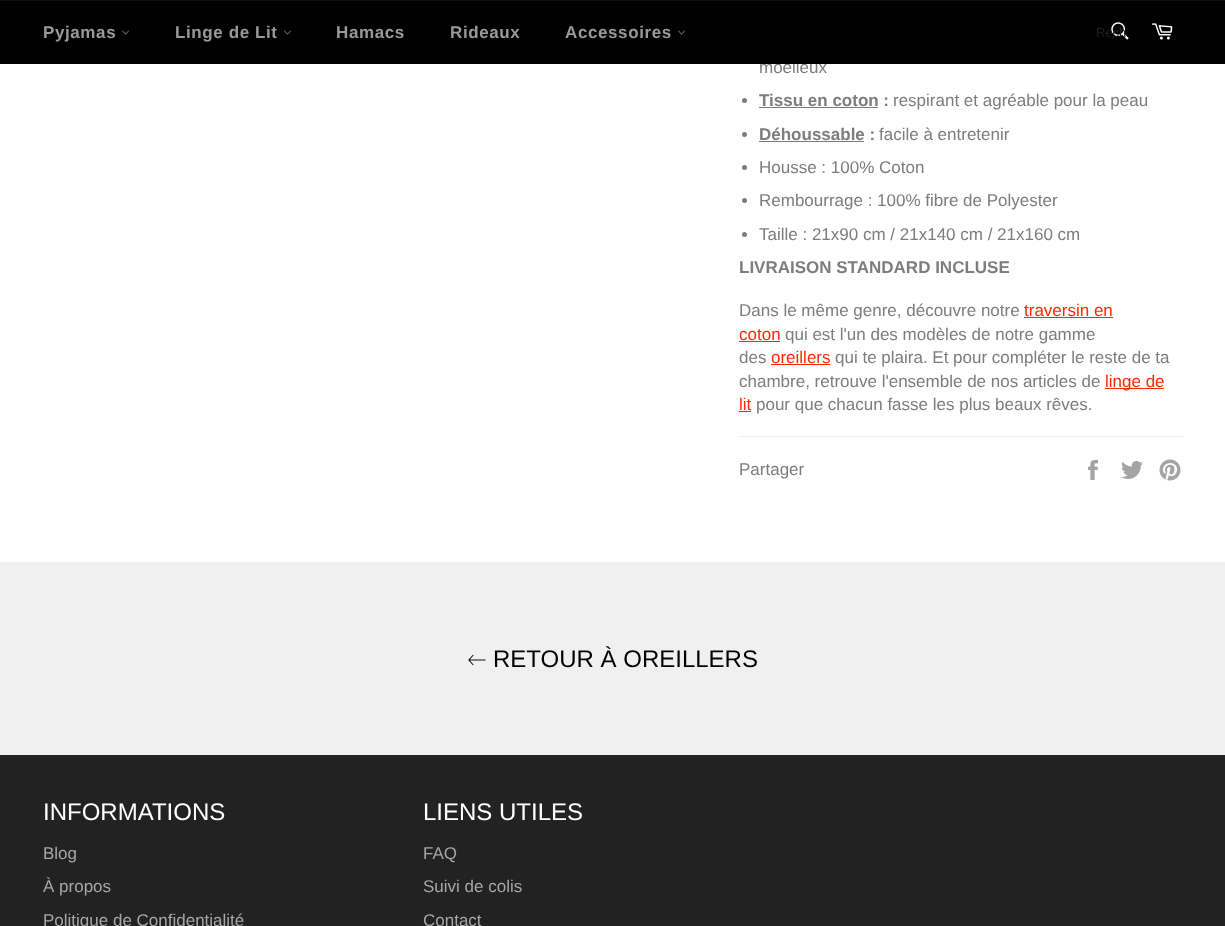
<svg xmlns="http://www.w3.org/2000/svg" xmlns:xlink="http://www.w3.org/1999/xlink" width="1225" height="926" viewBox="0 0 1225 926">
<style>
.cls-1{font:17px Liberation Sans;fill:#7e7c7c}
.cls-2{font:13px Liberation Sans;fill:#1f1f1f}
.cls-3{font:bold 17px Liberation Sans;letter-spacing:0.6px;fill:#999999}
.cls-4{font:bold 17px Liberation Sans;fill:#7e7c7c}
.cls-5{font:17px Liberation Sans;fill:#ff2a00}
.cls-6{font:24px Liberation Sans;fill:#020202}
.cls-7{font:24px Liberation Sans;fill:#ffffff}
.cls-8{font:17px Liberation Sans;fill:#a7a7a7}
</style>
<rect width="100%" height="100%" fill="#ffffff"/>
<rect fill="#0d0d0d" x="0" y="0" width="1225" height="1"/>
<circle fill="#7e7c7c" cx="744.5" cy="100.5" r="2.5"/>
<rect fill="#7e7c7c" x="759" y="107" width="119" height="1"/>
<circle fill="#7e7c7c" cx="744.5" cy="134.5" r="2.5"/>
<rect fill="#7e7c7c" x="759" y="141" width="105" height="1"/>
<circle fill="#7e7c7c" cx="744.5" cy="167.5" r="2.5"/>
<circle fill="#7e7c7c" cx="744.5" cy="200.5" r="2.5"/>
<circle fill="#7e7c7c" cx="744.5" cy="234.5" r="2.5"/>
<rect fill="#ff2a00" x="1024" y="317" width="89" height="1"/>
<rect fill="#ff2a00" x="739" y="341" width="41" height="1"/>
<rect fill="#ff2a00" x="771" y="364" width="59" height="1"/>
<rect fill="#ff2a00" x="1105" y="388" width="59" height="1"/>
<rect fill="#ff2a00" x="739" y="411" width="12" height="1"/>
<rect fill="#f0f0f0" x="739" y="436" width="444" height="1"/>
<image xlink:href="image3.png" x="1088" y="460" width="10" height="20"/>
<image xlink:href="image4.png" x="1121" y="461" width="22" height="18"/>
<image xlink:href="image5.png" x="1159" y="459" width="22" height="22"/>
<rect fill="#f0f0f0" x="0" y="562" width="1225" height="193"/>
<image xlink:href="image6.png" x="468" y="654" width="18" height="12"/>
<rect fill="#222222" x="0" y="755" width="1225" height="171"/>
<text class="cls-1" x="759" y="73">moelleux</text>
<rect fill="#000000" x="0" y="1" width="1225" height="63"/>
<image xlink:href="image1.png" x="1111" y="22" width="18" height="18"/>
<text class="cls-2" x="1096" y="37">Rech</text>
<image xlink:href="image2.png" x="1151" y="23" width="22" height="17"/>
<image xlink:href="image0.png" x="678" y="30" width="7" height="5"/>
<text class="cls-3" x="565" y="38">Accessoires</text>
<text class="cls-3" x="450" y="38">Rideaux</text>
<text class="cls-3" x="336" y="38">Hamacs</text>
<image xlink:href="image0.png" x="284" y="30" width="7" height="5"/>
<text class="cls-3" x="175" y="38">Linge de Lit</text>
<image xlink:href="image0.png" x="122" y="30" width="7" height="5"/>
<text class="cls-3" x="43" y="38">Pyjamas</text>
<text class="cls-4" x="759" y="106">Tissu en coton :</text>
<text class="cls-1" x="893" y="106">respirant et agréable pour la peau</text>
<text class="cls-4" x="759" y="140">Déhoussable :</text>
<text class="cls-1" x="879" y="140">facile à entretenir</text>
<text class="cls-1"><tspan x="759" y="173">Housse : 100% Coton</tspan><tspan x="759" y="206">Rembourrage : 100% fibre de Polyester</tspan></text>
<text class="cls-1" x="759" y="240">Taille : 21x90 cm / 21x140 cm / 21x160 cm</text>
<text class="cls-4" x="739" y="273">LIVRAISON STANDARD INCLUSE</text>
<text class="cls-1" x="739" y="316">Dans le même genre, découvre notre</text>
<text class="cls-5" x="1024" y="316">traversin en</text>
<text class="cls-5" x="739" y="340">coton</text>
<text class="cls-1" x="785" y="340">qui est l'un des modèles de notre gamme</text>
<text class="cls-1" x="739" y="363">des</text>
<text class="cls-5" x="771" y="363">oreillers</text>
<text class="cls-1" x="835" y="363">qui te plaira. Et pour compléter le reste de ta</text>
<text class="cls-1" x="739" y="387">chambre, retrouve l'ensemble de nos articles de</text>
<text class="cls-5" x="1105" y="387">linge de</text>
<text class="cls-5" x="739" y="410">lit</text>
<text class="cls-1" x="756" y="410">pour que chacun fasse les plus beaux rêves.</text>
<text class="cls-1" x="739" y="475">Partager</text>
<text class="cls-6" x="493" y="667">RETOUR À OREILLERS</text>
<text class="cls-7" x="43" y="820">INFORMATIONS</text>
<text class="cls-8"><tspan x="43" y="859">Blog</tspan><tspan x="43" y="892">À propos</tspan></text>
<text class="cls-8" x="43" y="926">Politique de Confidentialité</text>
<text class="cls-7" x="423" y="820">LIENS UTILES</text>
<text class="cls-8"><tspan x="423" y="859">FAQ</tspan><tspan x="423" y="892">Suivi de colis</tspan></text>
<text class="cls-8" x="423" y="926">Contact</text>
</svg>
